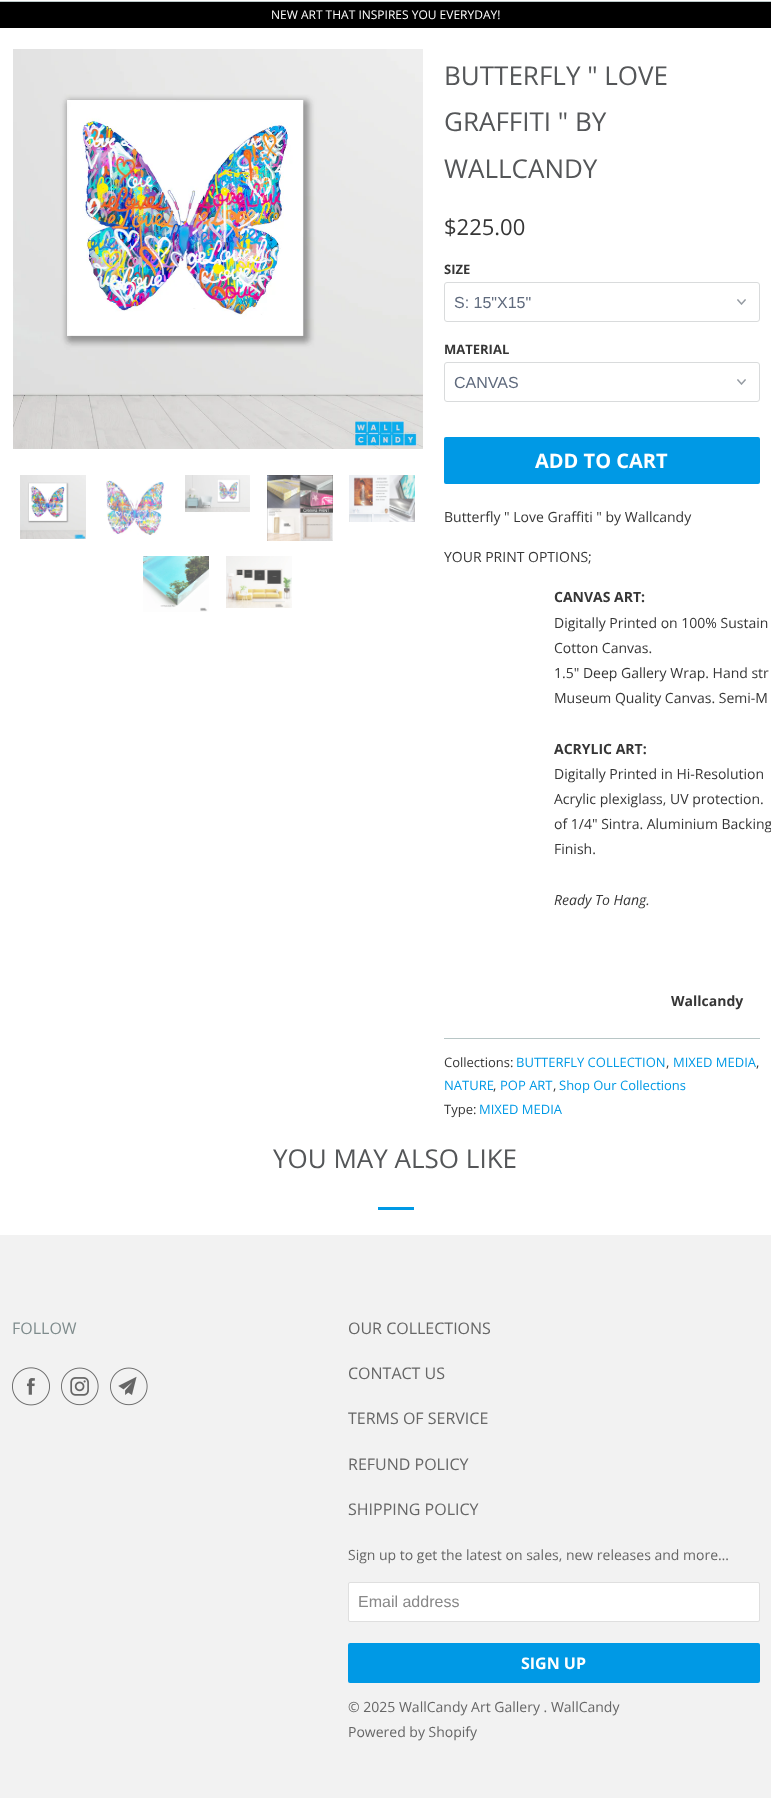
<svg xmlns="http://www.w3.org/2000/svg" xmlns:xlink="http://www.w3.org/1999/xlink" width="771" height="1798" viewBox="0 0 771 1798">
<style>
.cls-1{font:12px Open Sans;fill:#ffffff}
.cls-2{font:26px Open Sans;fill:#545658}
.cls-3{font:22px Open Sans;fill:#363636}
.cls-4{font:bold 13px Open Sans;fill:#363636}
.cls-5{font:16px Liberation Sans;fill:#5f6a7d}
.cls-6{font:bold 20px Open Sans;fill:#ffffff}
.cls-7{font:14px Open Sans;fill:#363636}
.cls-8{font:bold 14px Open Sans;fill:#363636}
.cls-9{font:italic 14px Open Sans;fill:#363636}
.cls-10{font:13px Open Sans;fill:#363636}
.cls-11{font:13px Open Sans;fill:#0099e5}
.cls-12{font:16px Open Sans;fill:#7f8c8d}
.cls-13{font:16px Open Sans;fill:#666666}
.cls-14{font:14px Open Sans;fill:#666666}
.cls-15{font:16px Liberation Sans;fill:#888888}
.cls-16{font:bold 16px Open Sans;fill:#ffffff}
</style>
<rect width="100%" height="100%" fill="#f2f2f2"/>
<rect fill="#ffffff" x="0" y="0" width="771" height="1235"/>
<rect fill="#bcc9c9" x="0" y="1" width="771" height="1"/>
<rect fill="#000000" x="0" y="2" width="771" height="26"/>
<image xlink:href="image0.png" x="13" y="49" width="410" height="400"/>
<image xlink:href="image1.png" x="20" y="475" width="66" height="64"/>
<image xlink:href="image2.png" x="106" y="480" width="59" height="55"/>
<image xlink:href="image3.png" x="185" y="475" width="65" height="37"/>
<image xlink:href="image4.png" x="267" y="475" width="66" height="66"/>
<image xlink:href="image5.png" x="349" y="475" width="66" height="47"/>
<image xlink:href="image6.png" x="143" y="556" width="66" height="56"/>
<image xlink:href="image7.png" x="226" y="556" width="66" height="52"/>
<image xlink:href="image8.png" x="737" y="299" width="9" height="6"/>
<rect fill="none" stroke="#d9dbdc" x="444.5" y="282.5" width="315" height="39" rx="2.5"/>
<image xlink:href="image8.png" x="737" y="379" width="9" height="6"/>
<rect fill="none" stroke="#d9dbdc" x="444.5" y="362.5" width="315" height="39" rx="2.5"/>
<rect fill="#0099e5" x="444" y="437" width="316" height="47" rx="2"/>
<rect fill="#b8c6c6" x="444" y="1038" width="316" height="1"/>
<rect fill="#0099e5" x="378" y="1207" width="36" height="3"/>
<image xlink:href="image9.png" x="12" y="1367" width="38" height="39"/>
<image xlink:href="image10.png" x="61" y="1367" width="38" height="39"/>
<image xlink:href="image11.png" x="110" y="1367" width="38" height="39"/>
<rect fill="#ffffff" stroke="#dfdfdf" x="348.5" y="1582.5" width="411" height="39" rx="1.5"/>
<rect fill="#0099e5" x="348" y="1643" width="412" height="40" rx="2"/>
<text class="cls-1" x="271" y="19">NEW ART THAT INSPIRES YOU EVERYDAY!</text>
<text class="cls-2"><tspan x="444" y="85">BUTTERFLY " LOVE</tspan><tspan x="444" y="131">GRAFFITI " BY</tspan><tspan x="444" y="178">WALLCANDY</tspan></text>
<text class="cls-3" x="444" y="235">$225.00</text>
<text class="cls-4" x="444" y="274">SIZE</text>
<text class="cls-5" x="454" y="308">S: 15"X15"</text>
<text class="cls-4" x="444" y="354">MATERIAL</text>
<text class="cls-5" x="454" y="388">CANVAS</text>
<text class="cls-6" x="535" y="468">ADD TO CART</text>
<text class="cls-7" x="444" y="522">Butterfly " Love Graffiti " by Wallcandy</text>
<text class="cls-7" x="444" y="562">YOUR PRINT OPTIONS;</text>
<text class="cls-8" x="554" y="602">CANVAS ART:</text>
<text class="cls-7"><tspan x="554" y="628">Digitally Printed on 100% Sustain</tspan><tspan x="554" y="653">Cotton Canvas.</tspan><tspan x="554" y="678">1.5" Deep Gallery Wrap. Hand str</tspan><tspan x="554" y="703">Museum Quality Canvas. Semi-M</tspan></text>
<text class="cls-8" x="554" y="754">ACRYLIC ART:</text>
<text class="cls-7"><tspan x="554" y="779">Digitally Printed in Hi-Resolution</tspan><tspan x="554" y="804">Acrylic plexiglass, UV protection.</tspan><tspan x="554" y="829">of 1/4" Sintra. Aluminium Backing</tspan><tspan x="554" y="854">Finish.</tspan></text>
<text class="cls-9" x="554" y="905">Ready To Hang.</text>
<text class="cls-8" x="671" y="1006">Wallcandy</text>
<text class="cls-10" x="444" y="1067">Collections:</text>
<text class="cls-11" x="516" y="1067">BUTTERFLY COLLECTION</text>
<text class="cls-10" x="666" y="1067">,</text>
<text class="cls-11" x="673" y="1067">MIXED MEDIA</text>
<text class="cls-10" x="756" y="1067">,</text>
<text class="cls-11" x="444" y="1090">NATURE</text>
<text class="cls-10" x="493" y="1090">,</text>
<text class="cls-11" x="500" y="1090">POP ART</text>
<text class="cls-10" x="553" y="1090">,</text>
<text class="cls-11" x="559" y="1090">Shop Our Collections</text>
<text class="cls-10" x="444" y="1114">Type:</text>
<text class="cls-11" x="479" y="1114">MIXED MEDIA</text>
<text class="cls-2" x="273" y="1168">YOU MAY ALSO LIKE</text>
<text class="cls-12" x="12" y="1334">FOLLOW</text>
<text class="cls-13" x="348" y="1334">OUR COLLECTIONS</text>
<text class="cls-13" x="348" y="1379">CONTACT US</text>
<text class="cls-13" x="348" y="1424">TERMS OF SERVICE</text>
<text class="cls-13" x="348" y="1470">REFUND POLICY</text>
<text class="cls-13" x="348" y="1515">SHIPPING POLICY</text>
<text class="cls-14" x="348" y="1560">Sign up to get the latest on sales, new releases and more…</text>
<text class="cls-15" x="358" y="1607">Email address</text>
<text class="cls-16" x="521" y="1669">SIGN UP</text>
<text class="cls-14"><tspan x="348" y="1712">© 2025 WallCandy Art Gallery . WallCandy</tspan><tspan x="348" y="1737">Powered by Shopify</tspan></text>
</svg>
